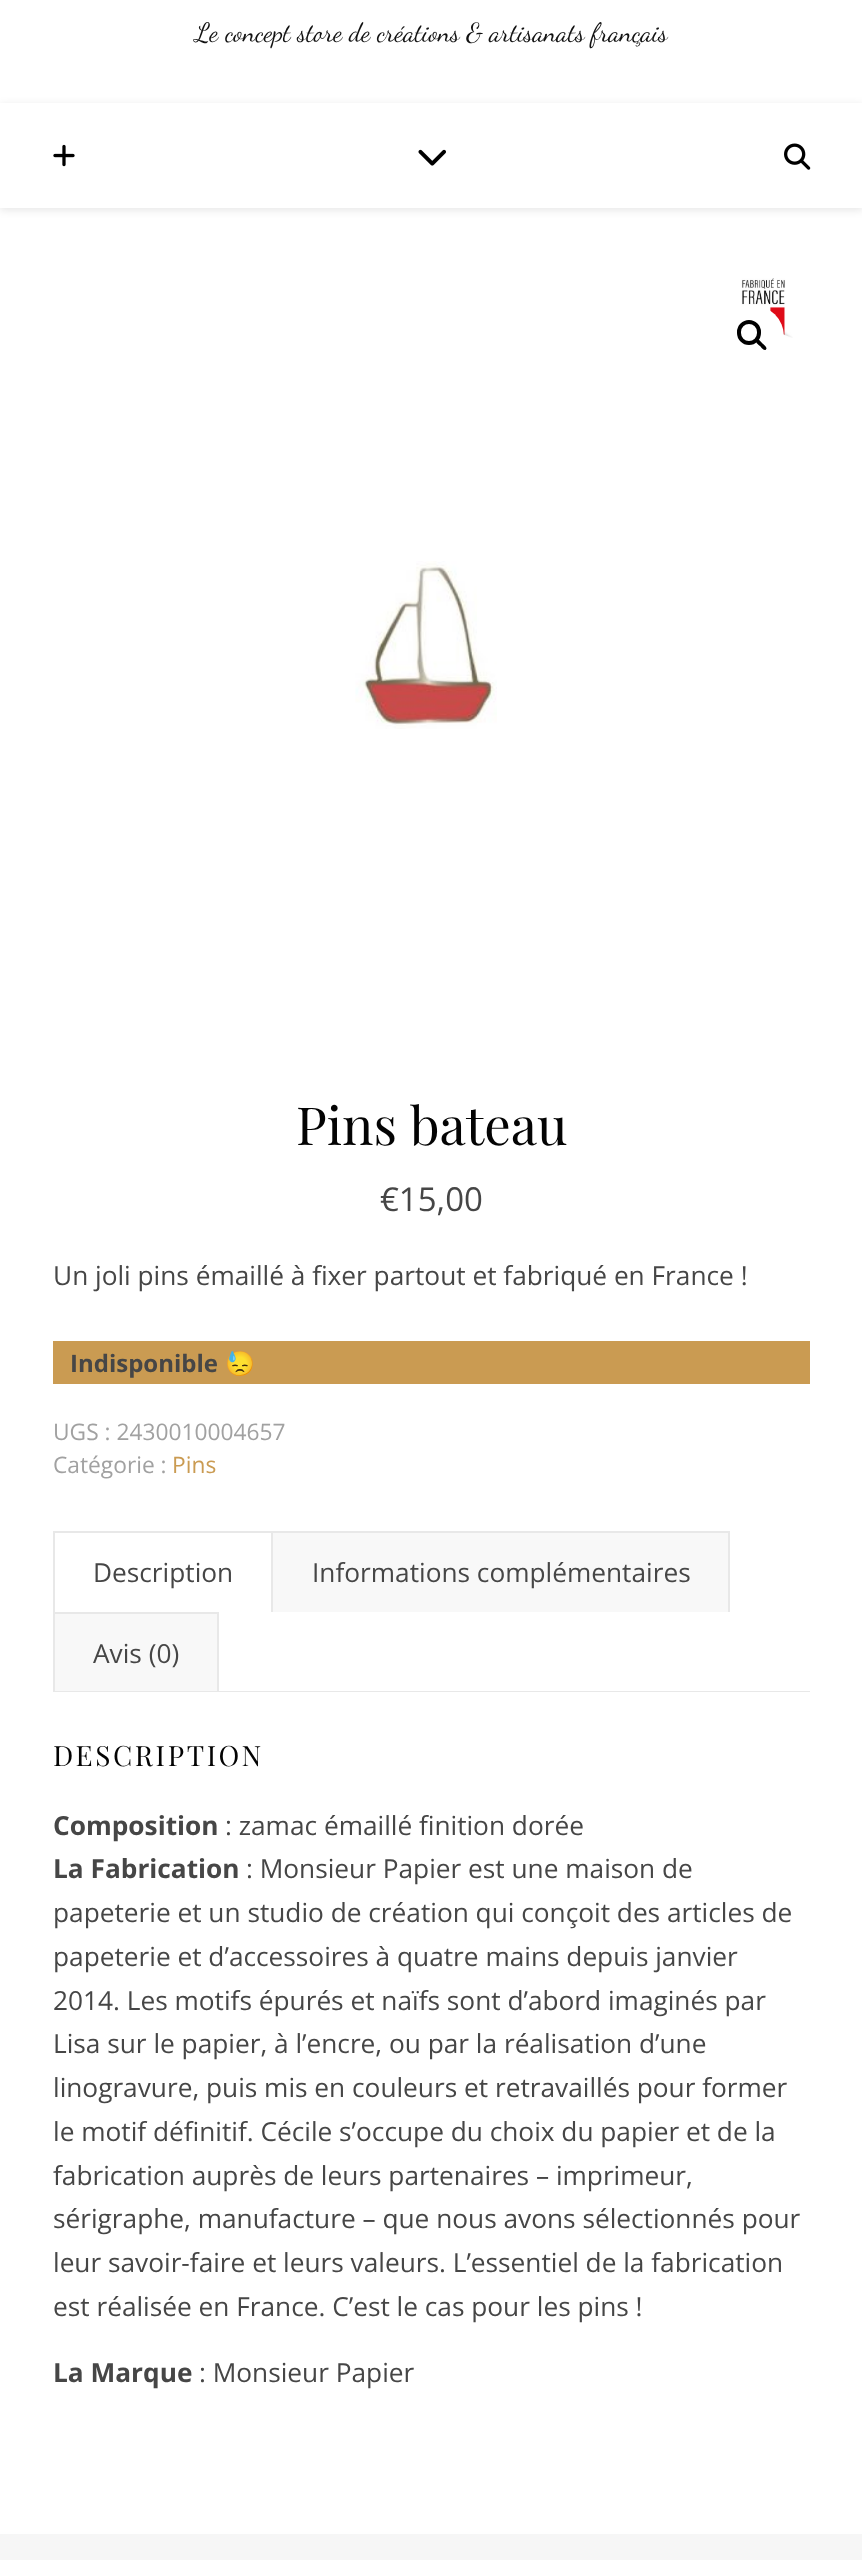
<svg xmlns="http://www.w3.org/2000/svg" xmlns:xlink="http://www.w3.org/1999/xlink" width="862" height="2560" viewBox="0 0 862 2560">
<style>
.cls-1{font:26.25px Dancing Script;fill:#111111}
.cls-2{font:52.5px Playfair Display;fill:#030303}
.cls-3{font:33px Open Sans;fill:#464646}
.cls-4{font:26.25px Open Sans;fill:#464646}
.cls-5{font:bold 24px Open Sans;fill:#464646}
.cls-6{font:bold 24px Noto Color Emoji;fill:#464646}
.cls-7{font:22.75px Open Sans;fill:#a1a1a1}
.cls-8{font:22.75px Open Sans;fill:#ca9b52}
.cls-9{font:28px Playfair Display;letter-spacing:2.6px;fill:#030303}
.cls-10{font:bold 26.25px Open Sans;fill:#464646}
</style>
<rect width="100%" height="100%" fill="#ffffff"/>
<rect fill="#000000" fill-opacity="0.1" filter="blur(4.5px)" x="0" y="105" width="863" height="105"/>
<rect fill="#ffffff" x="0" y="103" width="862" height="105"/>
<image xlink:href="image0.png" x="53" y="144" width="22" height="23"/>
<image xlink:href="image1.png" x="418" y="149" width="28" height="17"/>
<image xlink:href="image2.png" x="784" y="143" width="27" height="27"/>
<image xlink:href="image3.png" x="735" y="278" width="58" height="60"/>
<circle fill="#ffffff" cx="752.5" cy="336.5" r="31.5"/>
<rect fill="none" stroke="#000000" stroke-width="4" x="739" y="322" width="20" height="21" rx="10"/>
<path fill="#000000" d="M756.5 340C758.5 338 761.5 342.5 762.5 343.5C763.5 344.5 768 347.5 766 349.5C764 351.5 761 347 760 346C759 345 754.5 342 756.5 340Z"/>
<image xlink:href="image4.png" x="355" y="561" width="142" height="168"/>
<rect fill="#ca9b52" x="53" y="1341" width="757" height="43"/>
<rect fill="#e8e8e8" x="53" y="1531" width="677" height="2"/>
<rect fill="#e8e8e8" x="271" y="1531" width="2" height="81"/>
<rect fill="#f8f8f8" x="273" y="1533" width="455" height="79"/>
<rect fill="#e8e8e8" x="728" y="1531" width="2" height="81"/>
<rect fill="#f8f8f8" x="55" y="1614" width="162" height="77"/>
<rect fill="#e8e8e8" x="53" y="1612" width="166" height="2"/>
<rect fill="#e8e8e8" x="217" y="1612" width="2" height="80"/>
<rect fill="#e8e8e8" x="53" y="1531" width="2" height="161"/>
<rect fill="#e8e8e8" x="53" y="1691" width="757" height="1"/>
<rect fill="#f6f6f6" x="0" y="2534" width="862" height="26"/>
<text class="cls-1" x="195" y="41">Le concept store de créations &amp; artisanats français</text>
<text class="cls-2" x="296" y="1145">Pins bateau</text>
<text class="cls-3" x="380" y="1211">€15,00</text>
<text class="cls-4" x="53" y="1285">Un joli pins émaillé à fixer partout et fabriqué en France !</text>
<text class="cls-5" x="70" y="1372">Indisponible</text>
<text class="cls-6" x="225" y="1372">😓</text>
<text class="cls-7"><tspan x="53" y="1440">UGS : 2430010004657</tspan><tspan x="53" y="1473">Catégorie :</tspan></text>
<text class="cls-8" x="172" y="1473">Pins</text>
<text class="cls-4" x="93" y="1582">Description</text>
<text class="cls-4" x="312" y="1582">Informations complémentaires</text>
<text class="cls-4" x="93" y="1663">Avis (0)</text>
<text class="cls-9" x="53" y="1766">DESCRIPTION</text>
<text class="cls-10" x="53" y="1835">Composition</text>
<text class="cls-4" x="225" y="1835">: zamac émaillé finition dorée</text>
<text class="cls-10" x="53" y="1878">La Fabrication</text>
<text class="cls-4" x="246" y="1878">: Monsieur Papier est une maison de</text>
<text class="cls-4"><tspan x="53" y="1922">papeterie et un studio de création qui conçoit des articles de</tspan><tspan x="53" y="1966">papeterie et d’accessoires à quatre mains depuis janvier</tspan><tspan x="53" y="2010">2014. Les motifs épurés et naïfs sont d’abord imaginés par</tspan><tspan x="53" y="2053">Lisa sur le papier, à l’encre, ou par la réalisation d’une</tspan><tspan x="53" y="2097">linogravure, puis mis en couleurs et retravaillés pour former</tspan><tspan x="53" y="2141">le motif définitif. Cécile s’occupe du choix du papier et de la</tspan><tspan x="53" y="2185">fabrication auprès de leurs partenaires – imprimeur,</tspan><tspan x="53" y="2228">sérigraphe, manufacture – que nous avons sélectionnés pour</tspan><tspan x="53" y="2272">leur savoir-faire et leurs valeurs. L’essentiel de la fabrication</tspan><tspan x="53" y="2316">est réalisée en France. C’est le cas pour les pins !</tspan></text>
<text class="cls-10" x="53" y="2382">La Marque</text>
<text class="cls-4" x="199" y="2382">: Monsieur Papier</text>
</svg>
